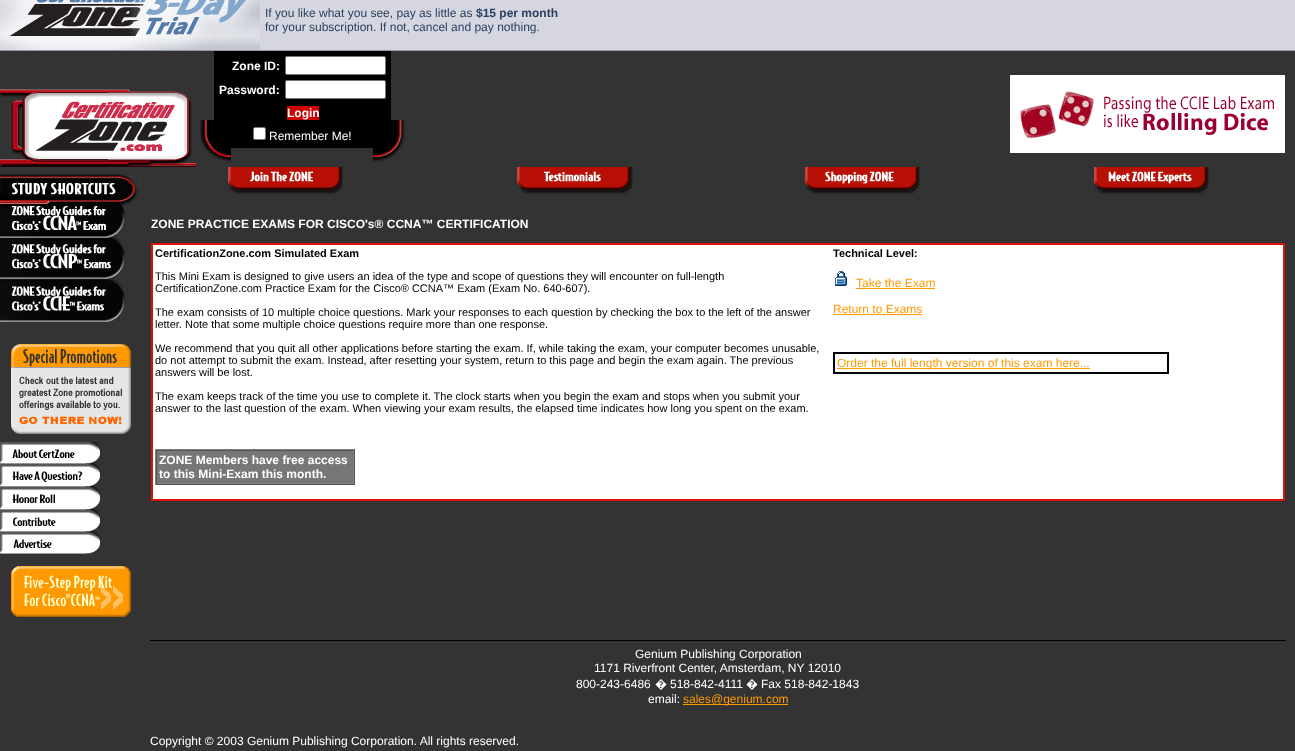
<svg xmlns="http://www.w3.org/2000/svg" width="1295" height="751">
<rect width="100%" height="100%" fill="#333"/>
<rect x="260" width="1035" height="50" fill="#d5d6df"/>
<image x="0" y="0" width="260" height="50" href="media/1.png"/>
<text x="265" y="17" style="font-family:Liberation Sans;font-size:12px;fill:#294060">If you like what you see, pay as little as</text>
<text x="476" y="17" style="font-family:Liberation Sans;font-size:12px;font-weight:bold;fill:#294060">$15 per month</text>
<text x="265" y="31" style="font-family:Liberation Sans;font-size:12px;fill:#294060">for your subscription. If not, cancel and pay nothing.</text>
<rect y="50" width="1295" height="1" fill="#9498a8"/>
<image x="0" y="89" width="196" height="78" href="media/2.png"/>
<image x="200" y="120" width="14" height="28" href="media/3.png"/>
<rect x="214" y="51" width="177" height="97" fill="#000"/>
<text x="232" y="70" style="font-family:Liberation Sans;font-size:12px;font-weight:bold;fill:#fff">Zone ID:</text>
<rect x="285.5" y="56.5" width="100" height="18" rx="1.5" fill="#fff" stroke="#767676"/>
<text x="219" y="94" style="font-family:Liberation Sans;font-size:12px;font-weight:bold;fill:#fff">Password:</text>
<rect x="285.5" y="80.5" width="100" height="18" rx="1.5" fill="#fff" stroke="#767676"/>
<rect x="287" y="106" width="32" height="14" fill="#c00"/>
<text x="287" y="117" style="font-family:Liberation Sans;font-size:12px;font-weight:bold;fill:#fff">Login</text>
<rect x="253.5" y="127.5" width="12" height="12" rx="1.5" fill="#fff" stroke="#767676"/>
<text x="269" y="140" style="font-family:Liberation Sans;font-size:12px;fill:#fff">Remember Me!</text>
<image x="391" y="120" width="14" height="28" href="media/4.png"/>
<image x="205" y="148" width="26" height="14" href="media/5.png"/>
<image x="373" y="148" width="28" height="14" href="media/6.png"/>
<image x="1010" y="75" width="275" height="78" href="media/7.png"/>
<image x="0" y="174" width="141" height="25" href="media/8.png"/>
<image x="0" y="199" width="134" height="37" href="media/9.png"/>
<image x="0" y="236" width="125" height="41" href="media/10.png"/>
<image x="0" y="277" width="125" height="45" href="media/11.png"/>
<image x="11" y="344" width="120" height="90" href="media/12.png"/>
<image x="0" y="442" width="101" height="22" href="media/13.png"/>
<image x="0" y="464" width="100" height="23" href="media/14.png"/>
<image x="0" y="487" width="101" height="23" href="media/15.png"/>
<image x="0" y="510" width="100" height="22" href="media/16.png"/>
<image x="0" y="532" width="100" height="22" href="media/17.png"/>
<image x="11" y="566" width="120" height="51" href="media/18.png"/>
<image x="228" y="167" width="115" height="27" href="media/19.png"/>
<image x="517" y="167" width="116" height="27" href="media/20.png"/>
<image x="805" y="167" width="115" height="27" href="media/21.png"/>
<image x="1094" y="167" width="115" height="27" href="media/22.png"/>
<text x="151" y="228" style="font-family:Liberation Sans;font-size:12px;font-weight:bold;fill:#fff">ZONE PRACTICE EXAMS FOR CISCO's® CCNA™ CERTIFICATION</text>
<rect x="151" y="243" width="1134" height="258" fill="#dd1010"/>
<rect x="153" y="245" width="1130" height="254" fill="#fff"/>
<text x="155" y="257" style="font-family:Liberation Sans;font-size:11px;font-weight:bold;fill:#000">CertificationZone.com Simulated Exam</text>
<text x="155" y="280" style="font-family:Liberation Sans;font-size:11px;fill:#000">This Mini Exam is designed to give users an idea of the type and scope of questions they will encounter on full-length</text>
<text x="155" y="292" style="font-family:Liberation Sans;font-size:11px;fill:#000">CertificationZone.com Practice Exam for the Cisco® CCNA™ Exam (Exam No. 640-607).</text>
<text x="155" y="316" style="font-family:Liberation Sans;font-size:11px;fill:#000">The exam consists of 10 multiple choice questions. Mark your responses to each question by checking the box to the left of the answer</text>
<text x="155" y="328" style="font-family:Liberation Sans;font-size:11px;fill:#000">letter. Note that some multiple choice questions require more than one response.</text>
<text x="155" y="352" style="font-family:Liberation Sans;font-size:11px;fill:#000">We recommend that you quit all other applications before starting the exam. If, while taking the exam, your computer becomes unusable,</text>
<text x="155" y="364" style="font-family:Liberation Sans;font-size:11px;fill:#000">do not attempt to submit the exam. Instead, after resetting your system, return to this page and begin the exam again. The previous</text>
<text x="155" y="376" style="font-family:Liberation Sans;font-size:11px;fill:#000">answers will be lost.</text>
<text x="155" y="400" style="font-family:Liberation Sans;font-size:11px;fill:#000">The exam keeps track of the time you use to complete it. The clock starts when you begin the exam and stops when you submit your</text>
<text x="155" y="412" style="font-family:Liberation Sans;font-size:11px;fill:#000">answer to the last question of the exam. When viewing your exam results, the elapsed time indicates how long you spent on the exam.</text>
<rect x="155" y="449" width="200" height="1" fill="#808080"/>
<rect x="354" y="449" width="1" height="36" fill="#555"/>
<rect x="155" y="484" width="200" height="1" fill="#555"/>
<rect x="155" y="449" width="1" height="36" fill="#808080"/>
<rect x="157" y="451" width="196" height="32" fill="#777"/>
<rect x="156" y="450" width="198" height="1" fill="#555"/>
<rect x="353" y="450" width="1" height="34" fill="#808080"/>
<rect x="156" y="483" width="198" height="1" fill="#808080"/>
<rect x="156" y="450" width="1" height="34" fill="#555"/>
<text x="159" y="464" style="font-family:Liberation Sans;font-size:12px;font-weight:bold;fill:#fff">ZONE Members have free access</text>
<text x="159" y="478" style="font-family:Liberation Sans;font-size:12px;font-weight:bold;fill:#fff">to this Mini-Exam this month.</text>
<text x="833" y="257" style="font-family:Liberation Sans;font-size:11px;font-weight:bold;fill:#000">Technical Level:</text>
<image x="835" y="271" width="12" height="15" href="media/23.png"/>
<text x="856" y="287" style="font-family:Liberation Sans;font-size:12px;fill:#f90">Take the Exam</text>
<rect x="856" y="288" width="79" height="1" fill="#f90"/>
<text x="833" y="313" style="font-family:Liberation Sans;font-size:12px;fill:#f90">Return to Exams</text>
<rect x="833" y="314" width="89" height="1" fill="#f90"/>
<rect x="833.5" y="352.5" width="335" height="21" fill="none" stroke="#000"/>
<rect x="834.5" y="353.5" width="333" height="19" fill="none" stroke="#000"/>
<rect x="837" y="368" width="253" height="1" fill="#f90"/>
<text x="837" y="367" style="font-family:Liberation Sans;font-size:12px;fill:#f90">Order the full length version of this exam here...</text>
<rect x="150" y="640" width="1136" height="1" fill="#000"/>
<text x="635" y="658" style="font-family:Liberation Sans;font-size:12px;fill:#fff">Genium Publishing Corporation</text>
<text x="594" y="672" style="font-family:Liberation Sans;font-size:12px;fill:#fff">1171 Riverfront Center, Amsterdam, NY 12010</text>
<text x="576" y="688" style="font-family:Liberation Sans;font-size:12px;fill:#fff">800-243-6486</text>
<text x="655" y="688" style="font-family:Noto Sans;font-size:12px;fill:#fff">�</text>
<text x="670" y="688" style="font-family:Liberation Sans;font-size:12px;fill:#fff">518-842-4111</text>
<text x="746" y="688" style="font-family:Noto Sans;font-size:12px;fill:#fff">�</text>
<text x="761" y="688" style="font-family:Liberation Sans;font-size:12px;fill:#fff">Fax 518-842-1843</text>
<text x="648" y="703" style="font-family:Liberation Sans;font-size:12px;fill:#fff">email:</text>
<rect x="683" y="704" width="105" height="1" fill="#f90"/>
<text x="683" y="703" style="font-family:Liberation Sans;font-size:12px;fill:#f90">sales@genium.com</text>
<text x="150" y="745" style="font-family:Liberation Sans;font-size:12px;fill:#fff">Copyright © 2003 Genium Publishing Corporation. All rights reserved.</text>
</svg>
